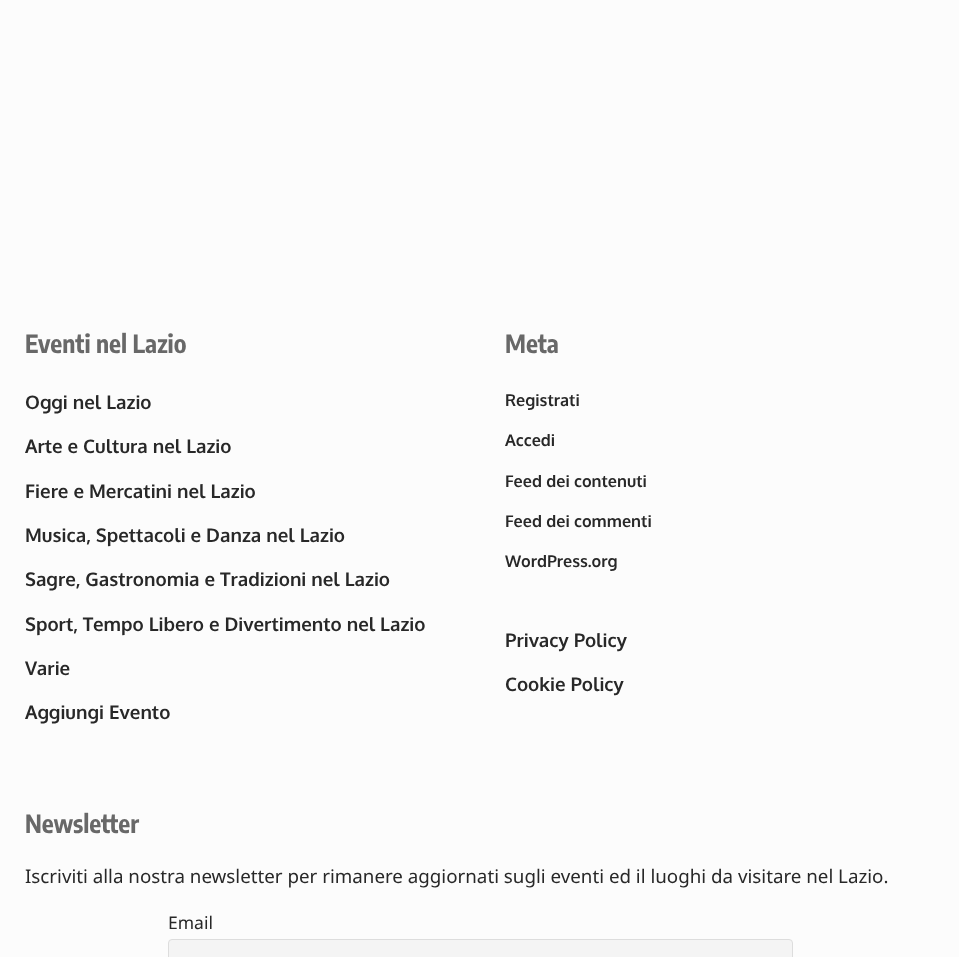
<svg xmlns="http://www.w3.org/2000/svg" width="959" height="957">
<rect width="100%" height="100%" fill="#fcfcfc"/>
<text x="25" y="353" style="font-family:Encode Sans Condensed;font-size:25px;font-weight:bold;fill:#686868">Eventi nel Lazio</text>
<text x="25" y="409" style="font-family:Oxygen;font-size:18.75px;font-weight:bold;fill:#282828">Oggi nel Lazio</text>
<text x="25" y="453" style="font-family:Oxygen;font-size:18.75px;font-weight:bold;fill:#282828">Arte e Cultura nel Lazio</text>
<text x="25" y="498" style="font-family:Oxygen;font-size:18.75px;font-weight:bold;fill:#282828">Fiere e Mercatini nel Lazio</text>
<text x="25" y="542" style="font-family:Oxygen;font-size:18.75px;font-weight:bold;fill:#282828">Musica, Spettacoli e Danza nel Lazio</text>
<text x="25" y="586" style="font-family:Oxygen;font-size:18.75px;font-weight:bold;fill:#282828">Sagre, Gastronomia e Tradizioni nel Lazio</text>
<text x="25" y="631" style="font-family:Oxygen;font-size:18.75px;font-weight:bold;fill:#282828">Sport, Tempo Libero e Divertimento nel Lazio</text>
<text x="25" y="675" style="font-family:Oxygen;font-size:18.75px;font-weight:bold;fill:#282828">Varie</text>
<text x="25" y="719" style="font-family:Oxygen;font-size:18.75px;font-weight:bold;fill:#282828">Aggiungi Evento</text>
<text x="505" y="353" style="font-family:Encode Sans Condensed;font-size:25px;font-weight:bold;fill:#686868">Meta</text>
<text x="505" y="406" style="font-family:Oxygen;font-size:16.25px;font-weight:bold;fill:#282828">Registrati</text>
<text x="505" y="446" style="font-family:Oxygen;font-size:16.25px;font-weight:bold;fill:#282828">Accedi</text>
<text x="505" y="487" style="font-family:Oxygen;font-size:16.25px;font-weight:bold;fill:#282828">Feed dei contenuti</text>
<text x="505" y="527" style="font-family:Oxygen;font-size:16.25px;font-weight:bold;fill:#282828">Feed dei commenti</text>
<text x="505" y="567" style="font-family:Oxygen;font-size:16.25px;font-weight:bold;fill:#282828">WordPress.org</text>
<text x="505" y="647" style="font-family:Oxygen;font-size:18.75px;font-weight:bold;fill:#282828">Privacy Policy</text>
<text x="505" y="691" style="font-family:Oxygen;font-size:18.75px;font-weight:bold;fill:#282828">Cookie Policy</text>
<text x="25" y="833" style="font-family:Encode Sans Condensed;font-size:25px;font-weight:bold;fill:#686868">Newsletter</text>
<text x="25" y="883" style="font-family:Noto Sans;font-size:18.75px;fill:#282828">Iscriviti alla nostra newsletter per rimanere aggiornati sugli eventi ed il luoghi da visitare nel Lazio.</text>
<text x="168" y="929" style="font-family:Noto Sans;font-size:17.5px;fill:#282828">Email</text>
<rect x="168.5" y="939.5" width="624" height="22" rx="3.5" fill="#f4f4f4" stroke="#ddd"/>
</svg>
